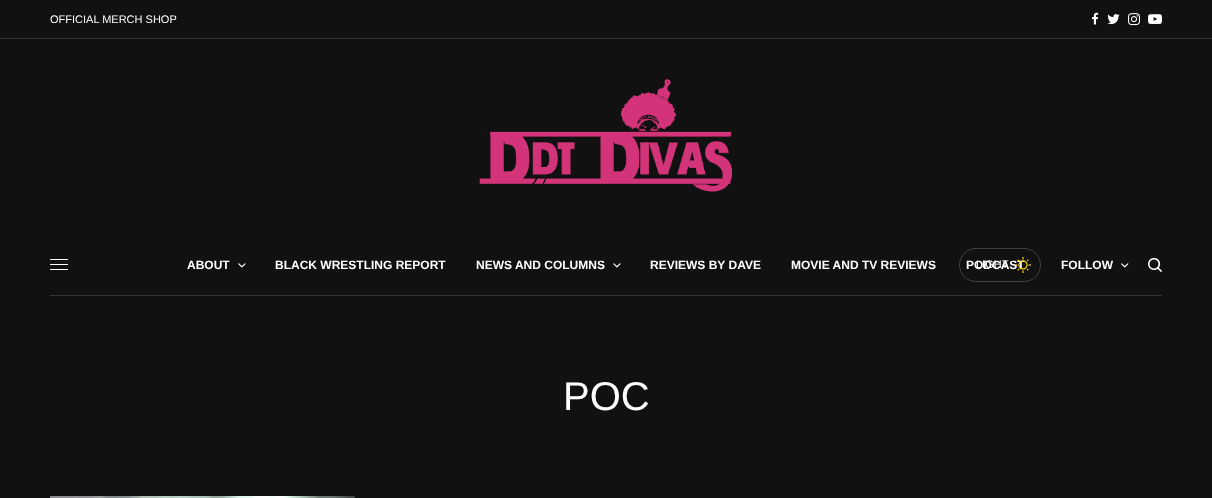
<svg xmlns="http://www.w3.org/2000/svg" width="1212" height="498">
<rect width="100%" height="100%" fill="#111"/>
<rect y="38" width="1212" height="1" fill="#353535"/>
<text x="50" y="23" style="font-family:Liberation Sans;font-size:11px;fill:#fff">OFFICIAL MERCH SHOP</text>
<image x="1092" y="12" width="7" height="13" href="media/1.png"/>
<image x="1107" y="14" width="13" height="11" href="media/2.png"/>
<image x="1128" y="13" width="12" height="13" href="media/3.png"/>
<image x="1148" y="14" width="14" height="10" href="media/4.png"/>
<image x="479" y="79" width="253" height="113" href="media/5.png"/>
<rect x="50" y="295" width="1112" height="1" fill="#353535"/>
<rect x="50" y="259" width="18" height="1" rx="0.5" fill="#fff"/>
<rect x="50" y="264" width="18" height="1" rx="0.5" fill="#fff"/>
<rect x="50" y="269" width="18" height="1" rx="0.5" fill="#fff"/>
<text x="187" y="269" style="font-family:Liberation Sans;font-size:12px;font-weight:bold;fill:#fff">ABOUT</text>
<image x="238" y="263" width="8" height="5" href="media/6.png"/>
<text x="275" y="269" style="font-family:Liberation Sans;font-size:12px;font-weight:bold;fill:#fff">BLACK WRESTLING REPORT</text>
<text x="476" y="269" style="font-family:Liberation Sans;font-size:12px;font-weight:bold;fill:#fff">NEWS AND COLUMNS</text>
<image x="613" y="263" width="8" height="5" href="media/6.png"/>
<text x="650" y="269" style="font-family:Liberation Sans;font-size:12px;font-weight:bold;fill:#fff">REVIEWS BY DAVE</text>
<text x="791" y="269" style="font-family:Liberation Sans;font-size:12px;font-weight:bold;fill:#fff">MOVIE AND TV REVIEWS</text>
<text x="966" y="269" style="font-family:Liberation Sans;font-size:12px;font-weight:bold;fill:#fff">PODCAST</text>
<rect x="959.5" y="248.5" width="81" height="33" rx="16.5" fill="none" stroke="#414141"/>
<text x="976" y="268" style="font-family:Liberation Sans;font-size:11px;fill:#fff">LIGHT</text>
<image x="1016" y="257" width="15" height="16" href="media/7.png"/>
<text x="1061" y="269" style="font-family:Liberation Sans;font-size:12px;font-weight:bold;fill:#fff">FOLLOW</text>
<image x="1121" y="263" width="8" height="5" href="media/8.png"/>
<image x="1148" y="258" width="14" height="14" href="media/9.png"/>
<text x="563" y="410" style="font-family:Liberation Sans;font-size:40px;fill:#fff">POC</text>
<image x="50" y="496" width="305" height="2" href="media/10.png"/>
</svg>
